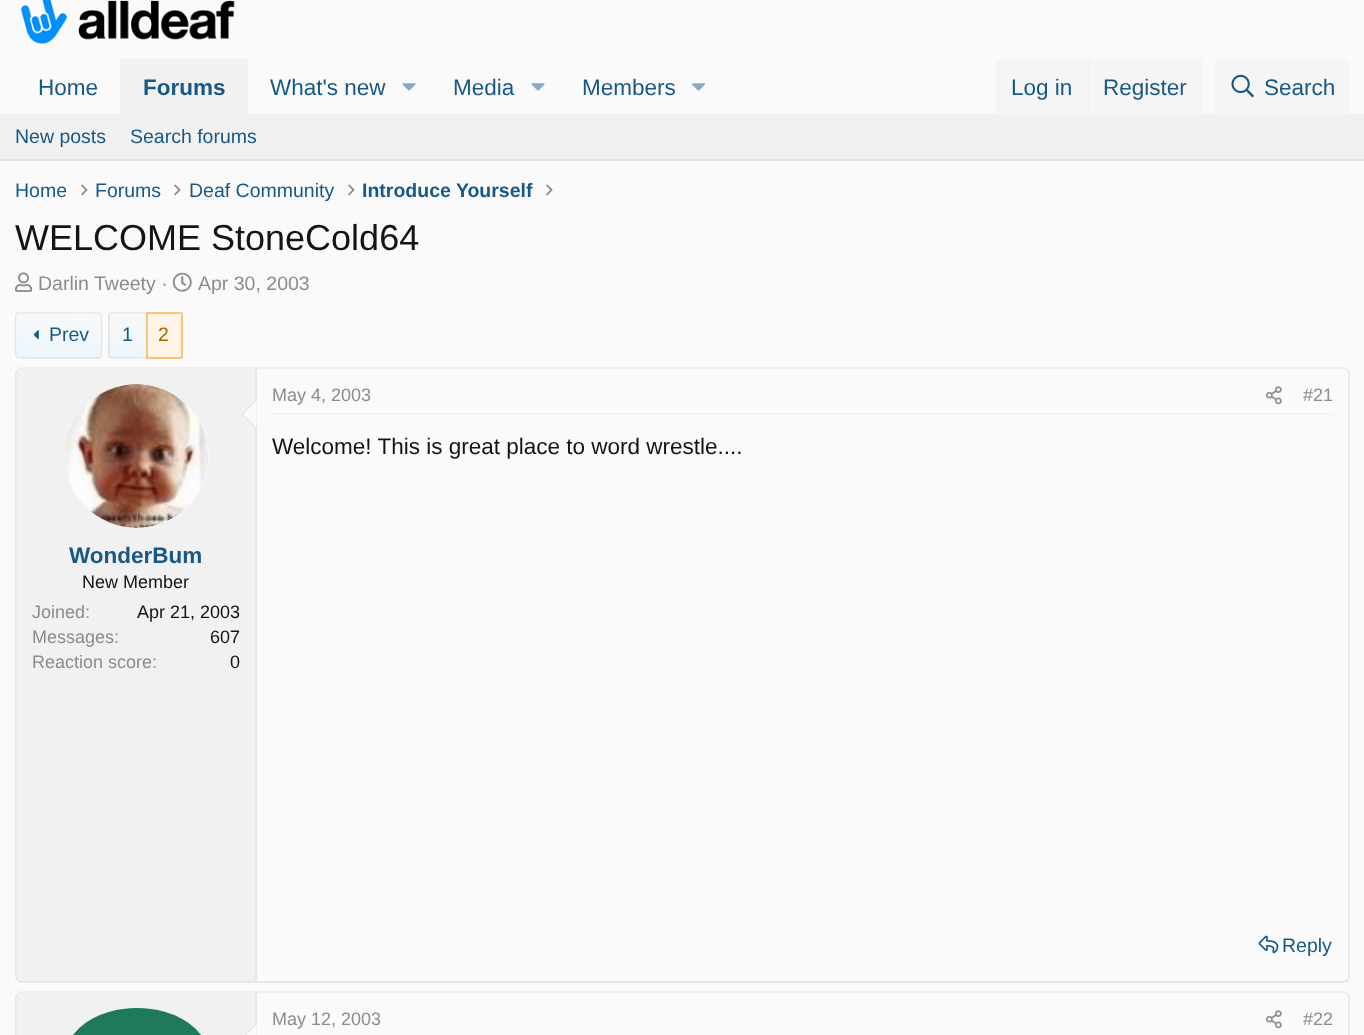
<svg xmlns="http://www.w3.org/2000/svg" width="1364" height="1035">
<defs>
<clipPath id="clip1"><rect x="15" y="312" width="87" height="47" rx="3"/></clipPath>
<linearGradient id="g1" gradientUnits="userSpaceOnUse" x1="59" y1="314" x2="59" y2="270"><stop offset="0" stop-color="#edf6fd"/><stop offset="1" stop-color="#f7f9fb"/></linearGradient>
<linearGradient id="g2" gradientUnits="userSpaceOnUse" x1="59" y1="357" x2="59" y2="314"><stop offset="0" stop-color="#edf6fd"/><stop offset="1" stop-color="#f7f9fb"/></linearGradient>
<linearGradient id="g3" gradientUnits="userSpaceOnUse" x1="59" y1="401" x2="59" y2="357"><stop offset="0" stop-color="#edf6fd"/><stop offset="1" stop-color="#f7f9fb"/></linearGradient>
<clipPath id="clip2"><path d="M111 312h35v47h-35c-1.5 0-3-1.5-3-3v-41c0-1.5 1.5-3 3-3z"/></clipPath>
<linearGradient id="g4" gradientUnits="userSpaceOnUse" x1="128" y1="314" x2="128" y2="270"><stop offset="0" stop-color="#edf6fd"/><stop offset="1" stop-color="#f7f9fb"/></linearGradient>
<linearGradient id="g5" gradientUnits="userSpaceOnUse" x1="128" y1="357" x2="128" y2="314"><stop offset="0" stop-color="#edf6fd"/><stop offset="1" stop-color="#f7f9fb"/></linearGradient>
<linearGradient id="g6" gradientUnits="userSpaceOnUse" x1="128" y1="401" x2="128" y2="357"><stop offset="0" stop-color="#edf6fd"/><stop offset="1" stop-color="#f7f9fb"/></linearGradient>
</defs>
<rect width="100%" height="100%" fill="#fafafa"/>
<image x="20" y="0" width="215" height="44" href="media/1.png"/>
<text x="38" y="95" style="font-family:Liberation Sans;font-size:22.5px;fill:#185886">Home</text>
<path d="M123 59h122c1.5 0 3 1.5 3 3v52h-128v-52c0-1.5 1.5-3 3-3z" fill="#f1f1f1"/>
<text x="143" y="95" style="font-family:Liberation Sans;font-size:22.5px;font-weight:bold;fill:#185886">Forums</text>
<text x="270" y="95" style="font-family:Liberation Sans;font-size:22.5px;fill:#185886">What's new</text>
<image x="402" y="83" width="14" height="8" href="media/2.png"/>
<text x="453" y="95" style="font-family:Liberation Sans;font-size:22.5px;fill:#185886">Media</text>
<image x="531" y="83" width="14" height="8" href="media/2.png"/>
<text x="582" y="95" style="font-family:Liberation Sans;font-size:22.5px;fill:#185886">Members</text>
<image x="692" y="83" width="13" height="8" href="media/3.png"/>
<path d="M1002 59h195c3.5 0 6 2.5 6 6v49h-207v-49c0-3.5 2.5-6 6-6z" fill="#f5f5f5"/>
<text x="1011" y="95" style="font-family:Liberation Sans;font-size:22.5px;fill:#185886">Log in</text>
<rect x="1088" y="59" width="2" height="55" fill="#f1f1f1"/>
<text x="1103" y="95" style="font-family:Liberation Sans;font-size:22.5px;fill:#185886">Register</text>
<path d="M1220 59h124c3.5 0 6 2.5 6 6v49h-136v-49c0-3.5 2.5-6 6-6z" fill="#f5f5f5"/>
<image x="1231" y="74" width="23" height="24" href="media/4.png"/>
<text x="1264" y="95" style="font-family:Liberation Sans;font-size:22.5px;fill:#185886">Search</text>
<rect y="114" width="1364" height="45" fill="#f1f1f1"/>
<rect y="159" width="1364" height="2" fill="#e2e2e2"/>
<text x="15" y="143" style="font-family:Liberation Sans;font-size:19.5px;fill:#185886">New posts</text>
<text x="130" y="143" style="font-family:Liberation Sans;font-size:19.5px;fill:#185886">Search forums</text>
<text x="15" y="197" style="font-family:Liberation Sans;font-size:19.5px;fill:#185886">Home</text>
<image x="81" y="184" width="7" height="12" href="media/5.png"/>
<text x="95" y="197" style="font-family:Liberation Sans;font-size:19.5px;fill:#185886">Forums</text>
<image x="174" y="184" width="7" height="12" href="media/5.png"/>
<text x="189" y="197" style="font-family:Liberation Sans;font-size:19.5px;fill:#185886">Deaf Community</text>
<image x="348" y="184" width="7" height="12" href="media/5.png"/>
<text x="362" y="197" style="font-family:Liberation Sans;font-size:19.5px;font-weight:bold;fill:#185886">Introduce Yourself</text>
<image x="546" y="184" width="7" height="12" href="media/5.png"/>
<text x="15" y="250" style="font-family:Liberation Sans;font-size:36px;fill:#141414">WELCOME StoneCold64</text>
<image x="15" y="272" width="18" height="20" href="media/6.png"/>
<text x="38" y="290" style="font-family:Liberation Sans;font-size:19.5px;fill:#8c8c8c">Darlin Tweety ·</text>
<image x="172" y="272" width="20" height="20" href="media/7.png"/>
<text x="198" y="290" style="font-family:Liberation Sans;font-size:19.5px;fill:#8c8c8c">Apr 30, 2003</text>
<g clip-path="url(#clip1)">
<rect x="15" y="312" width="87" height="2" fill="url(#g1)"/>
<rect x="15" y="314" width="87" height="43" fill="url(#g2)"/>
<rect x="15" y="357" width="87" height="2" fill="url(#g3)"/>
</g>
<path d="M16.5 313.5l1.5-.5h13.5c7 0 67-1 68.5 0l.5 .5" fill="none" stroke="#ececec" stroke-width="1.5"/>
<path d="M100.5 313.5c1.5 1 1.5 42.5 0 43.5" fill="none" stroke="#e5e5e5" stroke-width="1.5"/>
<path d="M100.5 357l-1.5 1h-13.5c-7 0-67 .5-68.5-.5l-.5-.5" fill="none" stroke="#e2e2e2" stroke-width="1.5"/>
<path d="M16.5 357c-1.5-1-1.5-42.5 0-43.5" fill="none" stroke="#e5e5e5" stroke-width="1.5"/>
<image x="33" y="330" width="6" height="10" href="media/8.png"/>
<text x="49" y="341" style="font-family:Liberation Sans;font-size:19.5px;fill:#185886">Prev</text>
<g clip-path="url(#clip2)">
<rect x="108" y="312" width="38" height="2" fill="url(#g4)"/>
</g>
<rect x="108" y="314" width="38" height="43" fill="url(#g5)"/>
<g clip-path="url(#clip2)">
<rect x="108" y="357" width="38" height="2" fill="url(#g6)"/>
</g>
<path d="M111 312l-2 1l1 1h35.5v-2z" fill="#ececec"/>
<path d="M145.5 358l-29.5 .5l-7-.5v-.5l1-1l1 .5h34.5z" fill="#e2e2e2"/>
<path d="M108 314v42l1 2l1-2v-42l-1-1z" fill="#e5e5e5"/>
<text x="122" y="341" style="font-family:Liberation Sans;font-size:19.5px;fill:#185886">1</text>
<path d="M147 313h33c1 0 2 1 2 2v41c0 1-1 2-2 2h-33z" fill="#fff4e5" stroke="#f9c479" stroke-width="2"/>
<text x="158" y="341" style="font-family:Liberation Sans;font-size:19.5px;fill:#aa6709">2</text>
<path d="M17.5 370c1-1 2-2 3.5-2h1323c1.5 0 2.5 1 3.5 2" fill="none" stroke="#ececec" stroke-width="1.5"/>
<path d="M1347.5 370c1 1 1.5 2 1.5 3.5v603c0 1.5-.5 2.5-1.5 3.5" fill="none" stroke="#e5e5e5" stroke-width="1.5"/>
<path d="M1347.5 980c-1 1-2 2-3.5 2h-1323c-1.5 0-2.5-1-3.5-2" fill="none" stroke="#e2e2e2" stroke-width="1.5"/>
<path d="M17.5 980c-1-1-1.5-2-1.5-3.5v-603c0-1.5 .5-2.5 1.5-3.5" fill="none" stroke="#e5e5e5" stroke-width="1.5"/>
<path d="M22 369h235v612h-235c-3 0-5-2-5-5v-602c0-3 2-5 5-5z" fill="#f1f1f1"/>
<rect x="255" y="369" width="2" height="612" fill="#e5e5e5"/>
<circle cx="137" cy="456" r="72" fill="#fafafa"/>
<image x="65" y="384" width="143" height="144" href="media/9.png"/>
<path d="M256.5 399v30l-15-15z" fill="#e5e5e5"/>
<path d="M256.5 400.5v27l-13.5-13.5z" fill="#fafafa"/>
<text x="69" y="563" style="font-family:Liberation Sans;font-size:22.5px;font-weight:bold;fill:#185886">WonderBum</text>
<text x="82" y="588" style="font-family:Liberation Sans;font-size:18px;fill:#141414">New Member</text>
<text x="32" y="618" style="font-family:Liberation Sans;font-size:18px;fill:#8c8c8c">Joined:</text>
<text x="137" y="618" style="font-family:Liberation Sans;font-size:18px;fill:#141414">Apr 21, 2003</text>
<text x="32" y="643" style="font-family:Liberation Sans;font-size:18px;fill:#8c8c8c">Messages:</text>
<text x="210" y="643" style="font-family:Liberation Sans;font-size:18px;fill:#141414">607</text>
<text x="32" y="668" style="font-family:Liberation Sans;font-size:18px;fill:#8c8c8c">Reaction score:</text>
<text x="230" y="668" style="font-family:Liberation Sans;font-size:18px;fill:#141414">0</text>
<rect x="272" y="413" width="1062" height="2" fill="#f4f4f4"/>
<text x="272" y="401" style="font-family:Liberation Sans;font-size:18px;fill:#8c8c8c">May 4, 2003</text>
<image x="1266" y="386" width="16" height="19" href="media/10.png"/>
<text x="1303" y="401" style="font-family:Liberation Sans;font-size:18px;fill:#8c8c8c">#21</text>
<text x="272" y="454" style="font-family:Liberation Sans;font-size:22.5px;fill:#141414">Welcome! This is great place to word wrestle....</text>
<image x="1258" y="935" width="21" height="19" href="media/11.png"/>
<text x="1282" y="952" style="font-family:Liberation Sans;font-size:19.5px;fill:#185886">Reply</text>
<path d="M17.5 994c1-1 2-2 3.5-2h1323c1.5 0 2.5 1 3.5 2" fill="none" stroke="#ececec" stroke-width="1.5"/>
<path d="M1347.5 994c1 1 1.5 2 1.5 3.5v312c0 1.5-.5 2.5-1.5 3.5" fill="none" stroke="#e5e5e5" stroke-width="1.5"/>
<path d="M17.5 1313c-1-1-1.5-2-1.5-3.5v-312c0-1.5 .5-2.5 1.5-3.5" fill="none" stroke="#e5e5e5" stroke-width="1.5"/>
<path d="M22 993h235v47h-235c-3 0-5-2-5-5v-37c0-3 2-5 5-5z" fill="#f1f1f1"/>
<rect x="255" y="993" width="2" height="42" fill="#e5e5e5"/>
<rect x="65" y="1008" width="144" height="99" rx="72" fill="#1f7a5c"/>
<path d="M256.5 1023v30l-15-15z" fill="#e5e5e5"/>
<path d="M256.5 1024.5v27l-13.5-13.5z" fill="#fafafa"/>
<text x="272" y="1025" style="font-family:Liberation Sans;font-size:18px;fill:#8c8c8c">May 12, 2003</text>
<image x="1266" y="1010" width="16" height="19" href="media/10.png"/>
<text x="1303" y="1025" style="font-family:Liberation Sans;font-size:18px;fill:#8c8c8c">#22</text>
</svg>
